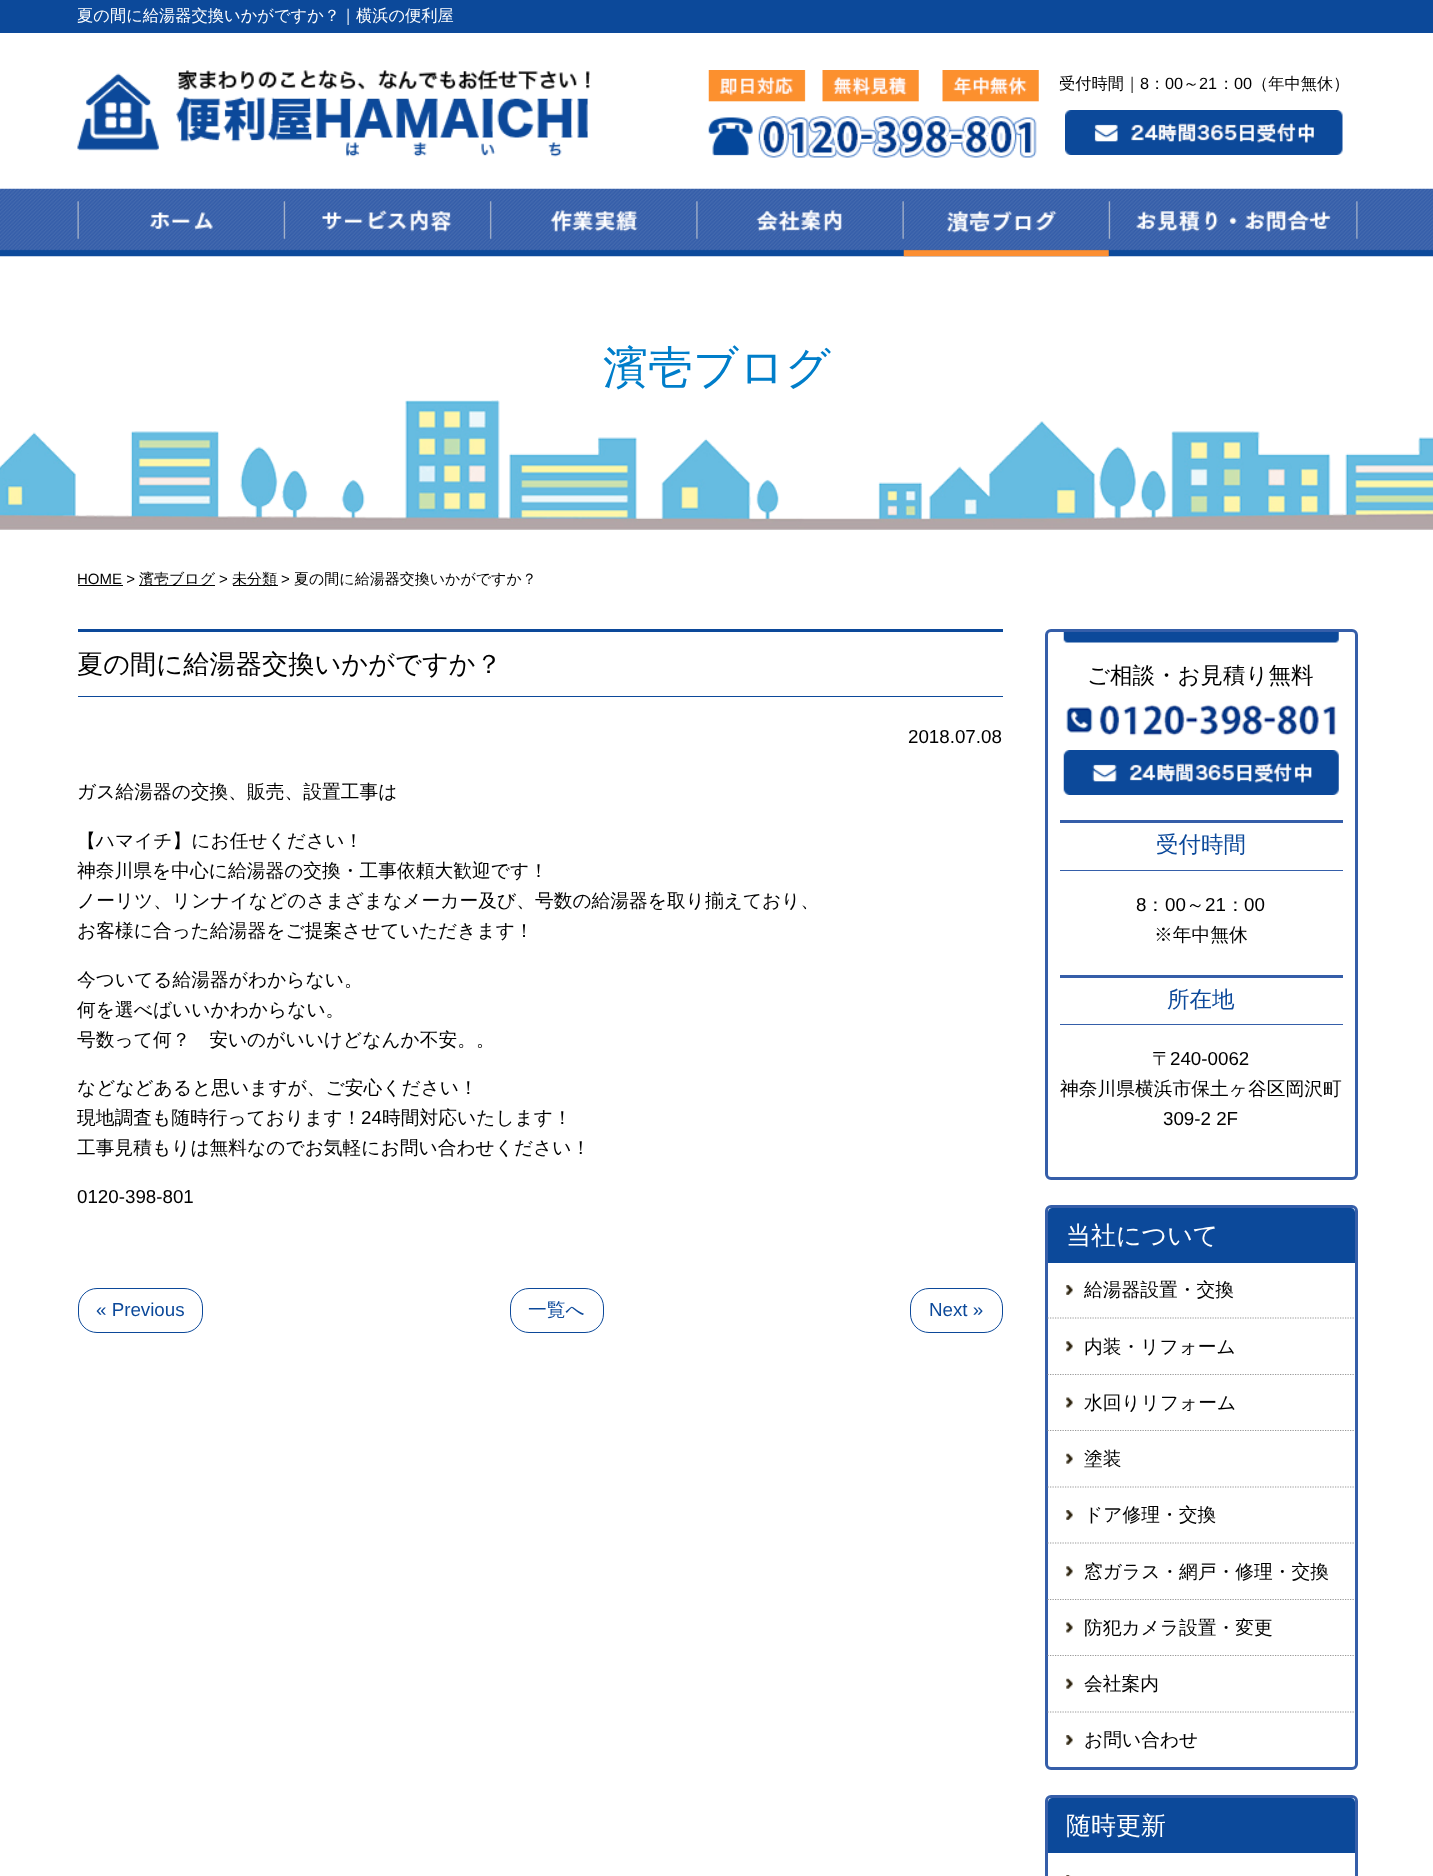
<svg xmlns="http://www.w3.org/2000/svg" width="1433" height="1876">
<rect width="100%" height="100%" fill="#fff"/>
<rect width="1433" height="33" fill="#0c499a"/>
<text x="77" y="21" style="font-family:WenQuanYi Zen Hei;font-size:16.25px;font-weight:500;fill:#fff">夏の間に給湯器交換いかがですか？｜横浜の便利屋</text>
<image x="77" y="70" width="513" height="87" href="media/1.png"/>
<image x="708" y="70" width="331" height="88" href="media/2.png"/>
<text x="1059" y="89" style="font-family:WenQuanYi Zen Hei;font-size:16.25px;font-weight:500;fill:#000">受付時間｜</text>
<text x="1140" y="89" style="font-family:Liberation Sans;font-size:16.25px;fill:#000">8</text>
<text x="1149" y="89" style="font-family:WenQuanYi Zen Hei;font-size:16.25px;font-weight:500;fill:#000">：</text>
<text x="1165" y="89" style="font-family:Liberation Sans;font-size:16.25px;fill:#000">00</text>
<text x="1183" y="89" style="font-family:WenQuanYi Zen Hei;font-size:16.25px;font-weight:500;fill:#000">～</text>
<text x="1199" y="89" style="font-family:Liberation Sans;font-size:16.25px;fill:#000">21</text>
<text x="1218" y="89" style="font-family:WenQuanYi Zen Hei;font-size:16.25px;font-weight:500;fill:#000">：</text>
<text x="1234" y="89" style="font-family:Liberation Sans;font-size:16.25px;fill:#000">00</text>
<text x="1252" y="89" style="font-family:WenQuanYi Zen Hei;font-size:16.25px;font-weight:500;fill:#000">（年中無休）</text>
<image x="1065" y="110" width="278" height="45" href="media/3.png"/>
<image x="0" y="188" width="1433" height="69" href="media/4.png"/>
<image x="77" y="201" width="1281" height="38" href="media/5.png"/>
<image x="149" y="212" width="64" height="18" href="media/6.png"/>
<image x="322" y="209" width="130" height="23" href="media/7.png"/>
<image x="550" y="209" width="88" height="23" href="media/8.png"/>
<image x="756" y="209" width="86" height="23" href="media/9.png"/>
<image x="903" y="210" width="206" height="47" href="media/10.png"/>
<image x="1136" y="210" width="195" height="22" href="media/11.png"/>
<image x="0" y="400" width="1433" height="130" href="media/12.png"/>
<text x="603" y="383" style="font-family:WenQuanYi Zen Hei;font-size:45px;font-weight:500;fill:#007eca">濱壱ブログ</text>
<text x="77" y="584" style="font-family:Liberation Sans;font-size:15px;fill:#000">HOME &gt;</text>
<rect x="78" y="585" width="45" height="1" fill="#000"/>
<rect x="139" y="585" width="76" height="1" fill="#000"/>
<text x="139" y="584" style="font-family:WenQuanYi Zen Hei;font-size:15px;font-weight:500;fill:#000">濱壱ブログ</text>
<text x="219" y="584" style="font-family:Liberation Sans;font-size:15px;fill:#000">&gt;</text>
<rect x="233" y="585" width="45" height="1" fill="#000"/>
<text x="232" y="584" style="font-family:WenQuanYi Zen Hei;font-size:15px;font-weight:500;fill:#000">未分類</text>
<text x="281" y="584" style="font-family:Liberation Sans;font-size:15px;fill:#000">&gt;</text>
<text x="294" y="584" style="font-family:WenQuanYi Zen Hei;font-size:15px;font-weight:500;fill:#000">夏の間に給湯器交換いかがですか？</text>
<rect x="78" y="629" width="925" height="3" fill="#0c499a"/>
<rect x="78" y="696" width="925" height="1" fill="#0c499a"/>
<text x="77" y="673" style="font-family:WenQuanYi Zen Hei;font-size:26.25px;font-weight:500;fill:#000">夏の間に給湯器交換いかがですか？</text>
<text x="908" y="743" style="font-family:Liberation Sans;font-size:18.75px;fill:#000">2018.07.08</text>
<text x="77" y="798" style="font-family:WenQuanYi Zen Hei;font-size:18.75px;font-weight:500;fill:#000">ガス給湯器の交換、販売、設置工事は</text>
<text x="77" y="847" style="font-family:WenQuanYi Zen Hei;font-size:18.75px;font-weight:500;fill:#000">【ハマイチ】にお任せください！</text>
<text x="77" y="877" style="font-family:WenQuanYi Zen Hei;font-size:18.75px;font-weight:500;fill:#000">神奈川県を中心に給湯器の交換・工事依頼大歓迎です！</text>
<text x="77" y="907" style="font-family:WenQuanYi Zen Hei;font-size:18.75px;font-weight:500;fill:#000">ノーリツ、リンナイなどのさまざまなメーカー及び、号数の給湯器を取り揃えており、</text>
<text x="77" y="937" style="font-family:WenQuanYi Zen Hei;font-size:18.75px;font-weight:500;fill:#000">お客様に合った給湯器をご提案させていただきます！</text>
<text x="77" y="986" style="font-family:WenQuanYi Zen Hei;font-size:18.75px;font-weight:500;fill:#000">今ついてる給湯器がわからない。</text>
<text x="77" y="1016" style="font-family:WenQuanYi Zen Hei;font-size:18.75px;font-weight:500;fill:#000">何を選べばいいかわからない。</text>
<text x="77" y="1046" style="font-family:WenQuanYi Zen Hei;font-size:18.75px;font-weight:500;fill:#000">号数って何？　安いのがいいけどなんか不安。。</text>
<text x="77" y="1094" style="font-family:WenQuanYi Zen Hei;font-size:18.75px;font-weight:500;fill:#000">などなどあると思いますが、ご安心ください！</text>
<text x="77" y="1124" style="font-family:WenQuanYi Zen Hei;font-size:18.75px;font-weight:500;fill:#000">現地調査も随時行っております！</text>
<text x="361" y="1124" style="font-family:Liberation Sans;font-size:18.75px;fill:#000">24</text>
<text x="382" y="1124" style="font-family:WenQuanYi Zen Hei;font-size:18.75px;font-weight:500;fill:#000">時間対応いたします！</text>
<text x="77" y="1154" style="font-family:WenQuanYi Zen Hei;font-size:18.75px;font-weight:500;fill:#000">工事見積もりは無料なのでお気軽にお問い合わせください！</text>
<text x="77" y="1203" style="font-family:Liberation Sans;font-size:18.75px;fill:#000">0120-398-801</text>
<rect x="78.5" y="1288.5" width="124" height="44" rx="18.5" fill="none" stroke="#0c499a"/>
<text x="96" y="1316" style="font-family:Liberation Sans;font-size:18.75px;fill:#0c499a">« Previous</text>
<rect x="510.5" y="1288.5" width="93" height="44" rx="18.5" fill="none" stroke="#0c499a"/>
<text x="528" y="1316" style="font-family:WenQuanYi Zen Hei;font-size:18.75px;font-weight:500;fill:#0c499a">一覧へ</text>
<rect x="910.5" y="1288.5" width="92" height="44" rx="18.5" fill="none" stroke="#0c499a"/>
<text x="929" y="1316" style="font-family:Liberation Sans;font-size:18.75px;fill:#0c499a">Next »</text>
<image x="1063" y="632" width="276" height="11" href="media/13.png"/>
<rect x="1046.5" y="630.5" width="310" height="548" rx="4.5" fill="none" stroke="#355ea9" stroke-width="3"/>
<text x="1087" y="683" style="font-family:WenQuanYi Zen Hei;font-size:22.5px;font-weight:500;fill:#000">ご相談・お見積り無料</text>
<image x="1066" y="704" width="270" height="32" href="media/14.png"/>
<image x="1063" y="750" width="276" height="45" href="media/15.png"/>
<rect x="1060" y="820" width="283" height="3" fill="#355ea9"/>
<rect x="1060" y="870" width="283" height="1" fill="#355ea9"/>
<text x="1156" y="852" style="font-family:WenQuanYi Zen Hei;font-size:22.5px;font-weight:500;fill:#0c499a">受付時間</text>
<text x="1136" y="911" style="font-family:Liberation Sans;font-size:18.75px;fill:#000">8</text>
<text x="1146" y="911" style="font-family:WenQuanYi Zen Hei;font-size:18.75px;font-weight:500;fill:#000">：</text>
<text x="1165" y="911" style="font-family:Liberation Sans;font-size:18.75px;fill:#000">00</text>
<text x="1186" y="911" style="font-family:WenQuanYi Zen Hei;font-size:18.75px;font-weight:500;fill:#000">～</text>
<text x="1205" y="911" style="font-family:Liberation Sans;font-size:18.75px;fill:#000">21</text>
<text x="1226" y="911" style="font-family:WenQuanYi Zen Hei;font-size:18.75px;font-weight:500;fill:#000">：</text>
<text x="1244" y="911" style="font-family:Liberation Sans;font-size:18.75px;fill:#000">00</text>
<text x="1154" y="941" style="font-family:WenQuanYi Zen Hei;font-size:18.75px;font-weight:500;fill:#000">※年中無休</text>
<rect x="1060" y="975" width="283" height="3" fill="#355ea9"/>
<rect x="1060" y="1024" width="283" height="1" fill="#355ea9"/>
<text x="1167" y="1007" style="font-family:WenQuanYi Zen Hei;font-size:22.5px;font-weight:500;fill:#0c499a">所在地</text>
<text x="1152" y="1065" style="font-family:WenQuanYi Zen Hei;font-size:18.75px;font-weight:500;fill:#000">〒</text>
<text x="1170" y="1065" style="font-family:Liberation Sans;font-size:18.75px;fill:#000">240-0062</text>
<text x="1060" y="1095" style="font-family:WenQuanYi Zen Hei;font-size:18.75px;font-weight:500;fill:#000">神奈川県横浜市保土ヶ谷区岡沢町</text>
<text x="1163" y="1125" style="font-family:Liberation Sans;font-size:18.75px;fill:#000">309-2 2F</text>
<rect x="1046.5" y="1206.5" width="310" height="562" rx="4.5" fill="none" stroke="#355ea9" stroke-width="3"/>
<path d="M1052 1208h299c2 0 4 2 4 4v51h-307v-51c0-2 2-4 4-4z" fill="#0c499a"/>
<text x="1066" y="1244" style="font-family:WenQuanYi Zen Hei;font-size:25px;font-weight:500;fill:#fff">当社について</text>
<image x="1066" y="1285" width="7" height="10" href="media/16.png"/>
<path d="M1047.5 1318h307.5" fill="none" stroke="#999" stroke-width="1.2" stroke-dasharray="1.25 1.25"/>
<text x="1084" y="1296" style="font-family:WenQuanYi Zen Hei;font-size:18.75px;font-weight:500;fill:#000">給湯器設置・交換</text>
<image x="1066" y="1341" width="7" height="11" href="media/17.png"/>
<path d="M1047.5 1374.5h307.5" fill="none" stroke="#999" stroke-width="1.2" stroke-dasharray="1.25 1.25"/>
<text x="1084" y="1353" style="font-family:WenQuanYi Zen Hei;font-size:18.75px;font-weight:500;fill:#000">内装・リフォーム</text>
<image x="1066" y="1397" width="7" height="11" href="media/18.png"/>
<path d="M1047.5 1430.5h307.5" fill="none" stroke="#999" stroke-width="1.2" stroke-dasharray="1.25 1.25"/>
<text x="1084" y="1409" style="font-family:WenQuanYi Zen Hei;font-size:18.75px;font-weight:500;fill:#000">水回りリフォーム</text>
<image x="1066" y="1453" width="7" height="11" href="media/19.png"/>
<path d="M1047.5 1487h307.5" fill="none" stroke="#999" stroke-width="1.2" stroke-dasharray="1.25 1.25"/>
<text x="1084" y="1465" style="font-family:WenQuanYi Zen Hei;font-size:18.75px;font-weight:500;fill:#000">塗装</text>
<image x="1066" y="1510" width="7" height="10" href="media/16.png"/>
<path d="M1047.5 1543h307.5" fill="none" stroke="#999" stroke-width="1.2" stroke-dasharray="1.25 1.25"/>
<text x="1084" y="1521" style="font-family:WenQuanYi Zen Hei;font-size:18.75px;font-weight:500;fill:#000">ドア修理・交換</text>
<image x="1066" y="1566" width="7" height="11" href="media/17.png"/>
<path d="M1047.5 1599.5h307.5" fill="none" stroke="#999" stroke-width="1.2" stroke-dasharray="1.25 1.25"/>
<text x="1084" y="1578" style="font-family:WenQuanYi Zen Hei;font-size:18.75px;font-weight:500;fill:#000">窓ガラス・網戸・修理・交換</text>
<image x="1066" y="1622" width="7" height="11" href="media/18.png"/>
<path d="M1047.5 1655.5h307.5" fill="none" stroke="#999" stroke-width="1.2" stroke-dasharray="1.25 1.25"/>
<text x="1084" y="1634" style="font-family:WenQuanYi Zen Hei;font-size:18.75px;font-weight:500;fill:#000">防犯カメラ設置・変更</text>
<image x="1066" y="1678" width="7" height="11" href="media/19.png"/>
<path d="M1047.5 1712h307.5" fill="none" stroke="#999" stroke-width="1.2" stroke-dasharray="1.25 1.25"/>
<text x="1084" y="1690" style="font-family:WenQuanYi Zen Hei;font-size:18.75px;font-weight:500;fill:#000">会社案内</text>
<image x="1066" y="1735" width="7" height="10" href="media/16.png"/>
<text x="1084" y="1746" style="font-family:WenQuanYi Zen Hei;font-size:18.75px;font-weight:500;fill:#000">お問い合わせ</text>
<rect x="1046.5" y="1796.5" width="310" height="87" rx="4.5" fill="none" stroke="#355ea9" stroke-width="3"/>
<path d="M1052 1798h299c2 0 4 2 4 4v51h-307v-51c0-2 2-4 4-4z" fill="#0c499a"/>
<text x="1066" y="1834" style="font-family:WenQuanYi Zen Hei;font-size:25px;font-weight:500;fill:#fff">随時更新</text>
<image x="1066" y="1875" width="5" height="1" href="media/20.png"/>
</svg>
